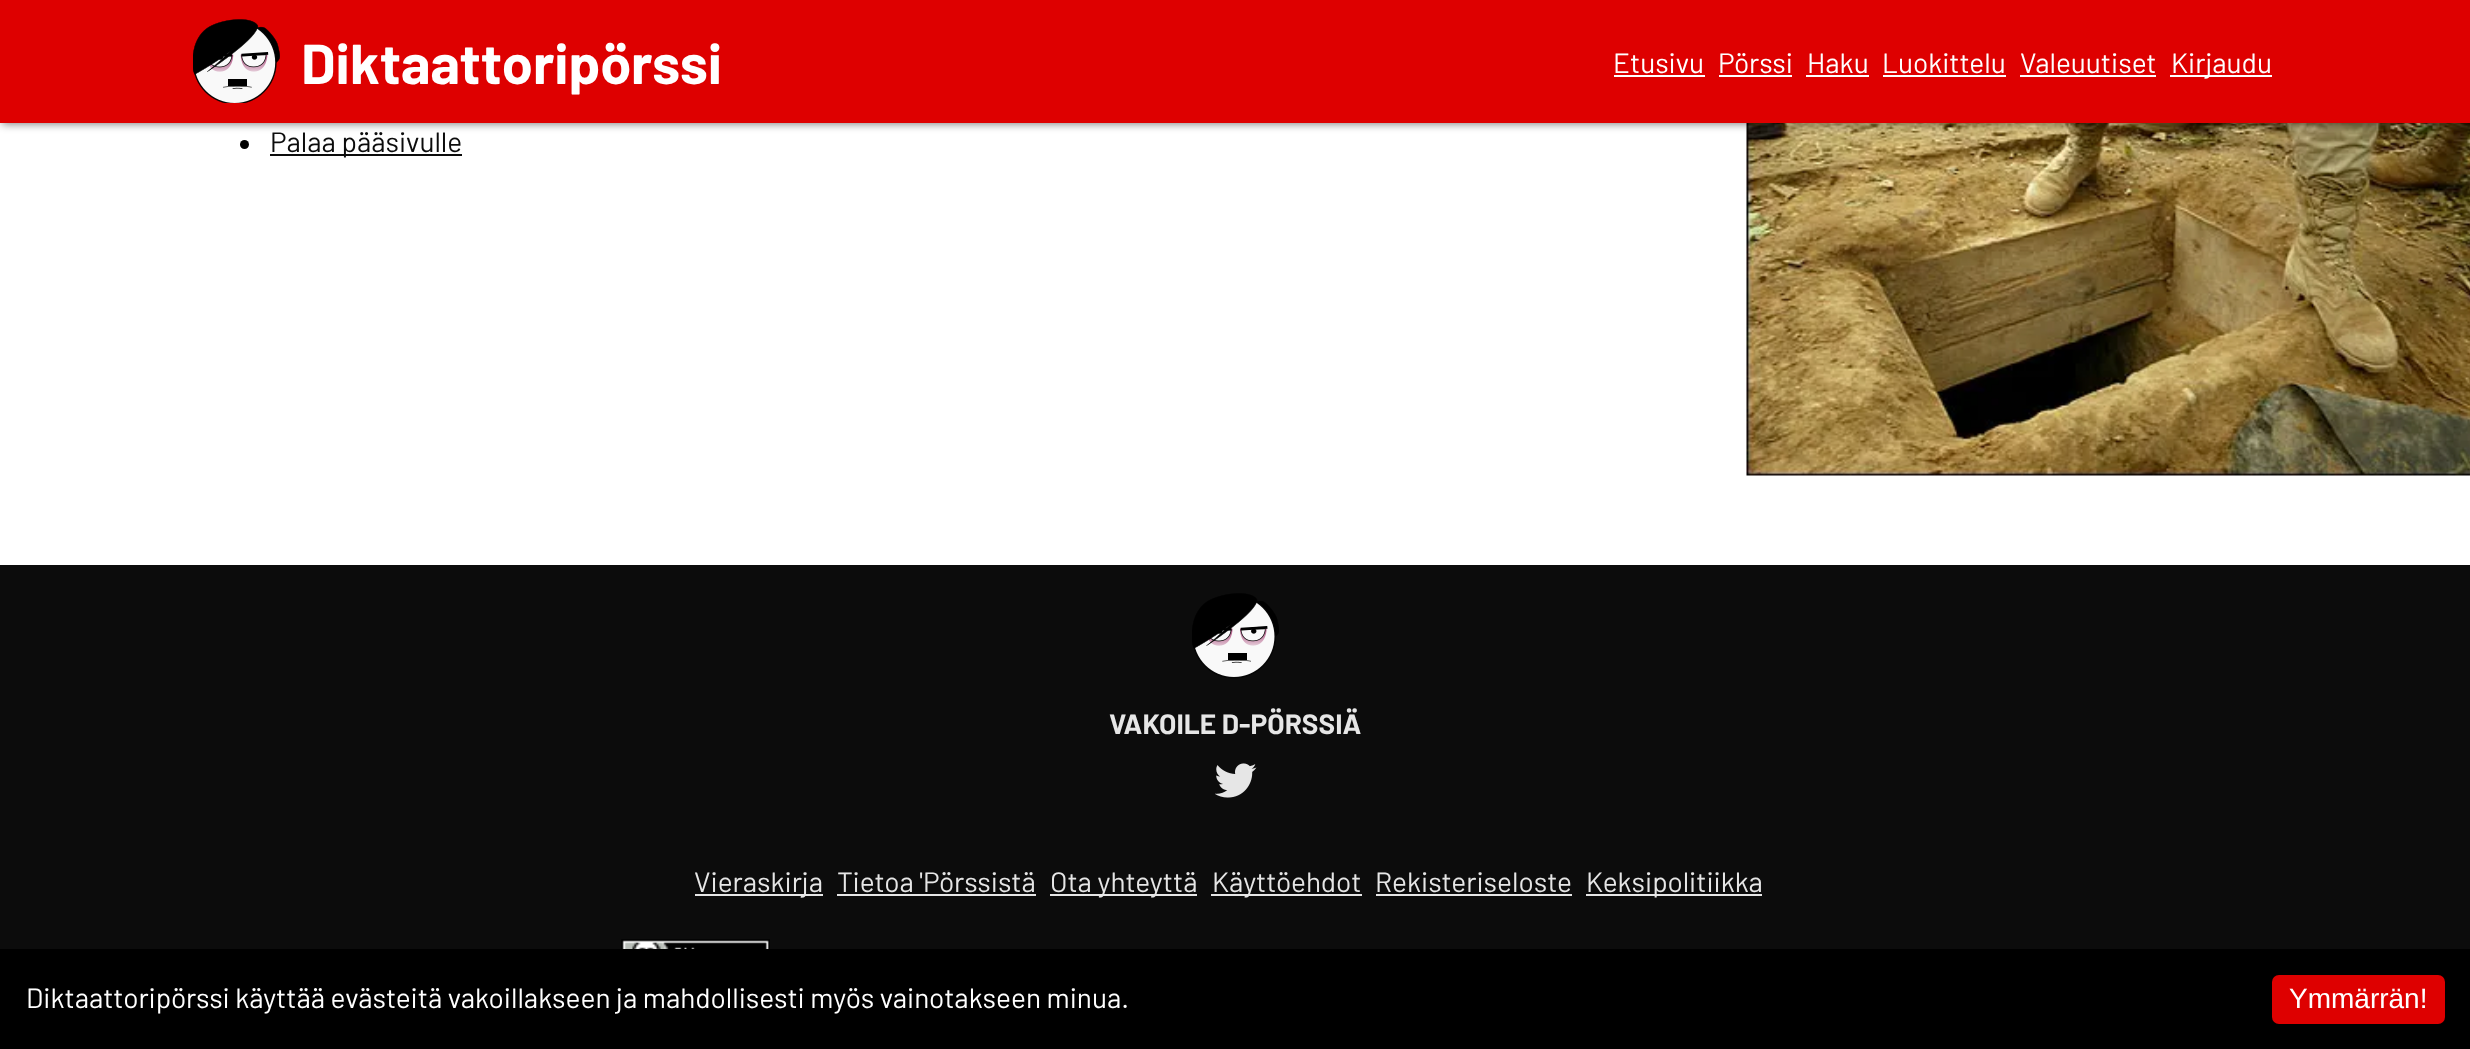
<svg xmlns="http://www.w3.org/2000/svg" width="2470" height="1049">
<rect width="100%" height="100%" fill="#fff"/>
<image x="1746" y="123" width="724" height="353" href="media/2.png"/>
<rect x="2" y="2" width="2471" height="122" fill="#00000080" filter="blur(4.5px)"/>
<rect width="2470" height="123" fill="#de0000"/>
<image x="193" y="19" width="87" height="84" href="media/1.png"/>
<text x="301" y="84" style="font-family:Barlow;font-size:56px;font-weight:bold;fill:#fff">Diktaattoripörssi</text>
<text x="1613" y="73" style="font-family:Barlow;font-size:28px;fill:#fff">Etusivu</text>
<rect x="1614" y="75" width="91" height="2" fill="#fff"/>
<text x="1718" y="73" style="font-family:Barlow;font-size:28px;fill:#fff">Pörssi</text>
<rect x="1719" y="75" width="73" height="2" fill="#fff"/>
<text x="1807" y="73" style="font-family:Barlow;font-size:28px;fill:#fff">Haku</text>
<rect x="1806" y="75" width="63" height="2" fill="#fff"/>
<text x="1882" y="73" style="font-family:Barlow;font-size:28px;fill:#fff">Luokittelu</text>
<rect x="1883" y="75" width="123" height="2" fill="#fff"/>
<text x="2020" y="73" style="font-family:Barlow;font-size:28px;fill:#fff">Valeuutiset</text>
<rect x="2020" y="75" width="136" height="2" fill="#fff"/>
<rect x="2170" y="75" width="102" height="2" fill="#fff"/>
<text x="2171" y="73" style="font-family:Barlow;font-size:28px;fill:#fff">Kirjaudu</text>
<circle cx="244.5" cy="144.5" r="4.5" fill="#000"/>
<rect x="270" y="154" width="192" height="2" fill="#0c0c0c"/>
<text x="270" y="152" style="font-family:Barlow;font-size:28px;fill:#0c0c0c">Palaa pääsivulle</text>
<rect y="565" width="2470" height="384" fill="#0c0c0c"/>
<image x="1192" y="593" width="87" height="86" href="media/3.png"/>
<text x="1109" y="734" style="font-family:Barlow;font-size:28px;font-weight:bold;fill:#e6e6e6">VAKOILE D-PÖRSSIÄ</text>
<image x="1215" y="763" width="42" height="35" href="media/4.png"/>
<rect x="695" y="894" width="128" height="2" fill="#e6e6e6"/>
<text x="694" y="892" style="font-family:Barlow;font-size:28px;fill:#e6e6e6">Vieraskirja</text>
<text x="837" y="892" style="font-family:Barlow;font-size:28px;fill:#e6e6e6">Tietoa 'Pörssistä</text>
<rect x="837" y="894" width="199" height="2" fill="#e6e6e6"/>
<rect x="1050" y="894" width="147" height="2" fill="#e6e6e6"/>
<text x="1050" y="892" style="font-family:Barlow;font-size:28px;fill:#e6e6e6">Ota yhteyttä</text>
<rect x="1211" y="894" width="151" height="2" fill="#e6e6e6"/>
<text x="1212" y="892" style="font-family:Barlow;font-size:28px;fill:#e6e6e6">Käyttöehdot</text>
<text x="1375" y="892" style="font-family:Barlow;font-size:28px;fill:#e6e6e6">Rekisteriseloste</text>
<rect x="1376" y="894" width="196" height="2" fill="#e6e6e6"/>
<rect x="1586" y="894" width="176" height="2" fill="#e6e6e6"/>
<text x="1586" y="892" style="font-family:Barlow;font-size:28px;fill:#e6e6e6">Keksipolitiikka</text>
<image x="621" y="939" width="149" height="10" href="media/5.png"/>
<rect y="949" width="2470" height="100" fill="#000"/>
<text x="26" y="1008" style="font-family:Barlow;font-size:28px;fill:#fff">Diktaattoripörssi käyttää evästeitä vakoillakseen ja mahdollisesti myös vainotakseen minua.</text>
<rect x="2272" y="975" width="173" height="49" rx="7" fill="#de0000"/>
<text x="2289" y="1008" style="font-family:Liberation Sans;font-size:28px;fill:#fff">Ymmärrän!</text>
</svg>
